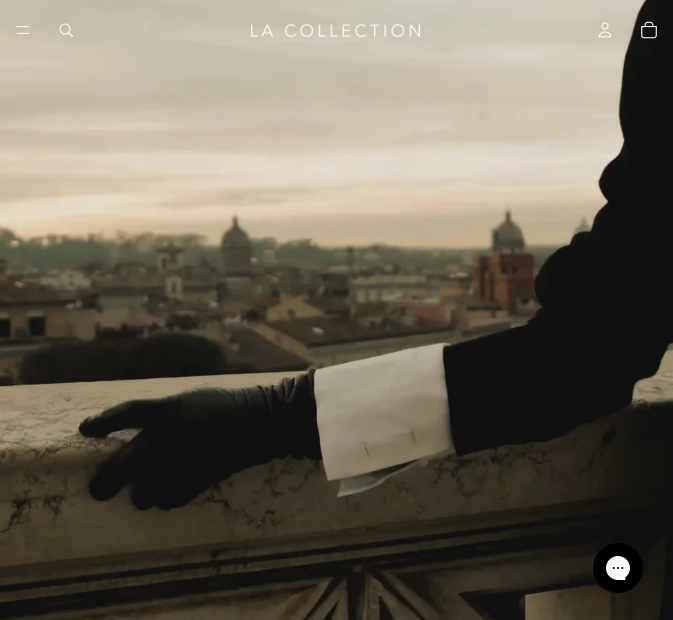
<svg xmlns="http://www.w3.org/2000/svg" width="673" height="620">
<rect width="100%" height="100%" fill="#fff"/>
<image x="0" y="0" width="673" height="620" href="media/1.png"/>
<image x="16" y="26" width="13" height="8" href="media/2.png"/>
<circle cx="65" cy="29" r="5" fill="none" stroke="#fff" stroke-width="1.1"/>
<path d="M69 33l3.5 3.5" fill="none" stroke="#fff" stroke-width="1.1" stroke-linecap="round" stroke-linejoin="round"/>
<image x="251" y="24" width="169" height="13" href="media/3.png"/>
<image x="598" y="22" width="14" height="16" href="media/4.png"/>
<image x="641" y="21" width="16" height="18" href="media/5.png"/>
<image x="593" y="543" width="50" height="50" href="media/6.png"/>
</svg>
